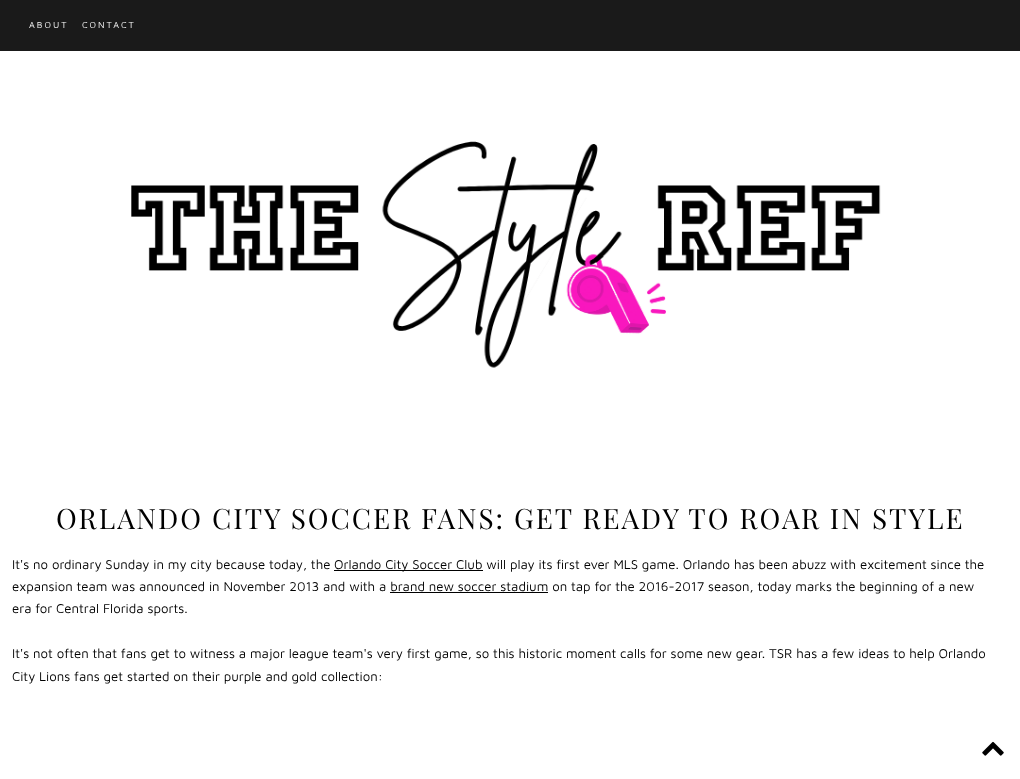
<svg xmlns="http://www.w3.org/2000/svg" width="1020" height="779">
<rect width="100%" height="100%" fill="#fff"/>
<rect width="1020" height="51" fill="#1a1a1a"/>
<text x="29" y="28" style="font-family:Maven Pro;font-size:9px;letter-spacing:2px;fill:#fff">ABOUT</text>
<text x="82" y="28" style="font-family:Maven Pro;font-size:9px;letter-spacing:2px;fill:#fff">CONTACT</text>
<image x="131" y="141" width="750" height="227" href="media/1.png"/>
<text x="56" y="529" style="font-family:Playfair Display SC;font-size:28px;letter-spacing:2px;fill:#000">ORLANDO CITY SOCCER FANS: GET READY TO ROAR IN STYLE</text>
<text x="12" y="569" style="font-family:Maven Pro;font-size:13.2px;fill:#000">It's no ordinary Sunday in my city because today, the</text>
<rect x="334" y="570" width="149" height="1" fill="#000"/>
<text x="334" y="569" style="font-family:Maven Pro;font-size:13.2px;fill:#000">Orlando City Soccer Club will play its first ever MLS game. Orlando has been abuzz with excitement since the</text>
<text x="12" y="591" style="font-family:Maven Pro;font-size:13.2px;fill:#000">expansion team was announced in November 2013 and with a brand new soccer stadium on tap for the 2016-2017 season, today marks the beginning of a new</text>
<rect x="390" y="592" width="158" height="1" fill="#000"/>
<text x="12" y="613" style="font-family:Maven Pro;font-size:13.2px;fill:#000">era for Central Florida sports.</text>
<text x="12" y="658" style="font-family:Maven Pro;font-size:13.2px;fill:#000">It's not often that fans get to witness a major league team's very first game, so this historic moment calls for some new gear. TSR has a few ideas to help Orlando</text>
<text x="12" y="681" style="font-family:Maven Pro;font-size:13.2px;fill:#000">City Lions fans get started on their purple and gold collection:</text>
<image x="982" y="741" width="22" height="15" href="media/2.png"/>
</svg>
